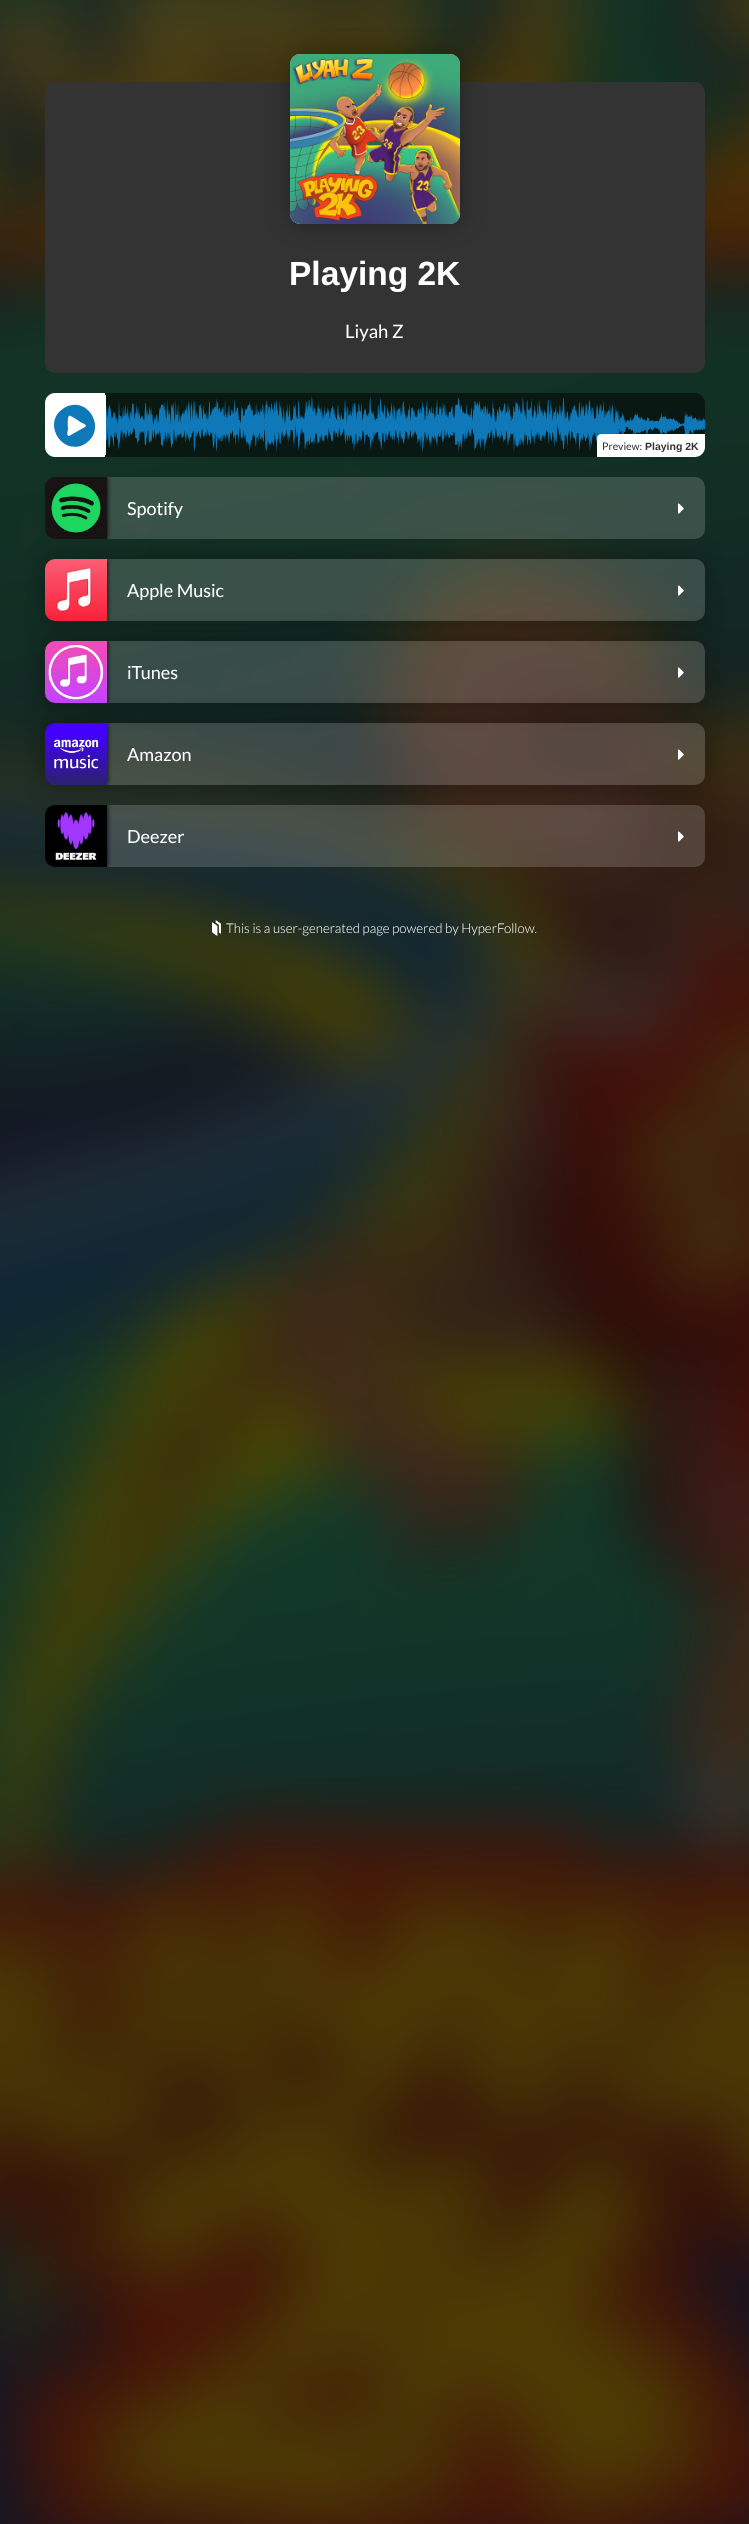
<svg xmlns="http://www.w3.org/2000/svg" width="749" height="2524">
<defs>
<clipPath id="clip1"><rect x="602" y="439" width="98" height="13"/></clipPath>
<clipPath id="clip2"><rect x="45" y="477" width="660" height="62" rx="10"/></clipPath>
<clipPath id="clip3"><rect x="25" y="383" width="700" height="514"/></clipPath>
<clipPath id="clip4"><path d="M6 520h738v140h-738zm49 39h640c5.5 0 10 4.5 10 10v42c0 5.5-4.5 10-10 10h-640c-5.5 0-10-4.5-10-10v-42c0-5.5 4.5-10 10-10z" clip-rule="evenodd"/></clipPath>
<clipPath id="clip5"><rect x="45" y="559" width="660" height="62" rx="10"/></clipPath>
<clipPath id="clip6"><path d="M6 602h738v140h-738zm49 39h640c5.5 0 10 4.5 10 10v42c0 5.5-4.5 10-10 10h-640c-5.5 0-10-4.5-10-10v-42c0-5.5 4.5-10 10-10z" clip-rule="evenodd"/></clipPath>
<clipPath id="clip7"><rect x="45" y="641" width="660" height="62" rx="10"/></clipPath>
<clipPath id="clip8"><path d="M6 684h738v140h-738zm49 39h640c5.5 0 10 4.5 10 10v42c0 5.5-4.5 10-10 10h-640c-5.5 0-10-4.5-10-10v-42c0-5.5 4.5-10 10-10z" clip-rule="evenodd"/></clipPath>
<clipPath id="clip9"><rect x="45" y="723" width="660" height="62" rx="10"/></clipPath>
<clipPath id="clip10"><rect x="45" y="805" width="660" height="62" rx="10"/></clipPath>
</defs>
<rect width="100%" height="100%" fill="#000"/>
<image x="0" y="0" width="749" height="2524" href="media/1.png"/>
<rect x="45" y="82" width="660" height="291" rx="10" fill="#333"/>
<rect x="290" y="54" width="170" height="170" rx="10" fill="#00000059" filter="blur(12.5px)"/>
<rect x="290" y="54" width="170" height="170" rx="10" fill="#ccc"/>
<image x="290" y="54" width="170" height="170" href="media/2.png"/>
<text x="289" y="285" style="font-family:Liberation Sans;font-size:33.5px;font-weight:bold;fill:#fff">Playing 2K</text>
<text x="345" y="338" style="font-family:Lato;font-size:18.5px;fill:#fff">Liyah Z</text>
<path d="M55 393h50v64h-50c-5.5 0-10-4.5-10-10v-44c0-5.5 4.5-10 10-10z" fill="#fff"/>
<path d="M64 408c24-14 44 22 21 36c-23 13-44-22-21-36zm21 19c4-2-5-5-5-5c-2-2-10-7-11-6c-2 1-1 11-1 13c0 1-2 7 1 7z" fill="#0f78b8"/>
<path d="M105 393h590c5.5 0 10 4.5 10 10v44c0 5.5-4.5 10-10 10h-590z" fill="#00000080"/>
<rect x="105" y="395" width="1" height="60" fill="#fff"/>
<image x="106" y="396" width="599" height="57" href="media/3.png"/>
<path d="M601 434h104v13c0 5.5-4.5 10-10 10h-98v-19c0-2 2-4 4-4z" fill="#fff"/>
<text x="602" y="450" style="font-family:Lato;font-size:10.5px;fill:#333">Preview:</text>
<g clip-path="url(#clip1)">
<text x="645" y="450" style="font-family:Liberation Sans;font-size:10.5px;font-weight:bold;fill:#333">Playing 2K</text>
</g>
<rect x="45" y="477" width="660" height="62" rx="10" fill="#ffffff2b"/>
<g clip-path="url(#clip2)">
<rect x="45" y="477" width="62" height="62" fill="#000" filter="blur(2.5px)"/>
</g>
<image x="45" y="477" width="62" height="62" href="media/4.png"/>
<text x="127" y="515" style="font-family:Lato;font-size:18px;fill:#fff">Spotify</text>
<image x="678" y="503" width="6" height="11" href="media/5.png"/>
<g clip-path="url(#clip3)">
<g clip-path="url(#clip4)">
<rect x="45" y="559" width="660" height="62" rx="10" fill="#00000059" filter="blur(12.5px)"/>
</g>
</g>
<rect x="45" y="559" width="660" height="62" rx="10" fill="#ffffff2b"/>
<g clip-path="url(#clip5)">
<rect x="45" y="559" width="62" height="62" fill="#000" filter="blur(2.5px)"/>
</g>
<image x="45" y="559" width="62" height="62" href="media/6.png"/>
<text x="127" y="597" style="font-family:Lato;font-size:18px;fill:#fff">Apple Music</text>
<image x="678" y="585" width="6" height="11" href="media/7.png"/>
<g clip-path="url(#clip3)">
<g clip-path="url(#clip6)">
<rect x="45" y="641" width="660" height="62" rx="10" fill="#00000059" filter="blur(12.5px)"/>
</g>
</g>
<rect x="45" y="641" width="660" height="62" rx="10" fill="#ffffff2b"/>
<g clip-path="url(#clip7)">
<rect x="45" y="641" width="62" height="62" fill="#000" filter="blur(2.5px)"/>
</g>
<image x="45" y="641" width="62" height="62" href="media/8.png"/>
<text x="127" y="679" style="font-family:Lato;font-size:18px;fill:#fff">iTunes</text>
<image x="678" y="667" width="6" height="11" href="media/9.png"/>
<g clip-path="url(#clip3)">
<g clip-path="url(#clip8)">
<rect x="45" y="723" width="660" height="62" rx="10" fill="#00000059" filter="blur(12.5px)"/>
</g>
</g>
<rect x="45" y="723" width="660" height="62" rx="10" fill="#ffffff2b"/>
<g clip-path="url(#clip9)">
<rect x="45" y="723" width="62" height="62" fill="#000" filter="blur(2.5px)"/>
</g>
<image x="45" y="723" width="62" height="62" href="media/10.png"/>
<text x="127" y="761" style="font-family:Lato;font-size:18px;fill:#fff">Amazon</text>
<image x="678" y="749" width="6" height="11" href="media/11.png"/>
<rect x="45" y="805" width="660" height="62" rx="10" fill="#ffffff2b"/>
<g clip-path="url(#clip10)">
<rect x="45" y="805" width="62" height="62" fill="#000" filter="blur(2.5px)"/>
</g>
<image x="45" y="805" width="62" height="62" href="media/12.png"/>
<text x="127" y="843" style="font-family:Lato;font-size:18px;fill:#fff">Deezer</text>
<image x="678" y="831" width="6" height="11" href="media/13.png"/>
<image x="212" y="920" width="9" height="16" href="media/14.png"/>
<text x="226" y="933" style="font-family:Lato;font-size:13.3px;font-weight:300;fill:#fff">This is a user-generated page powered by HyperFollow.</text>
</svg>
